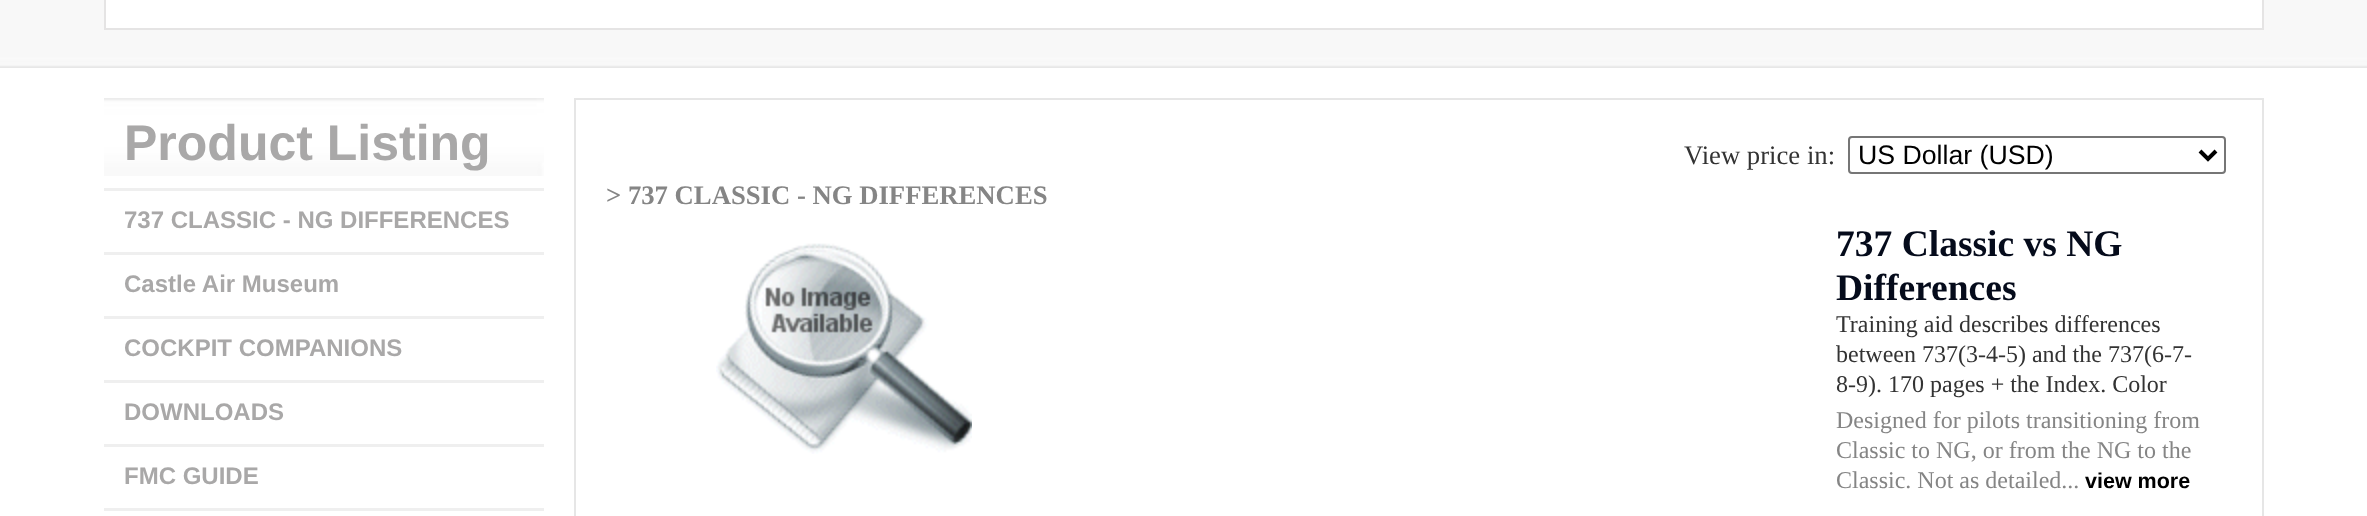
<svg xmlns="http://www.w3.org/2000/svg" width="2367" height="516">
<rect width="100%" height="100%" fill="#fff"/>
<image x="0" y="0" width="2367" height="68" href="media/1.png"/>
<rect x="105" y="-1" width="2158" height="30" fill="#fff" stroke="#e5e4e4" stroke-width="2"/>
<image x="104" y="98" width="440" height="78" href="media/2.png"/>
<text x="124" y="160" style="font-family:Liberation Sans;font-size:50px;font-weight:bold;fill:#a9a8a8">Product Listing</text>
<rect x="104" y="188" width="440" height="3" fill="#efefef"/>
<text x="124" y="228" style="font-family:Liberation Sans;font-size:24px;font-weight:bold;fill:#a9a8a8">737 CLASSIC - NG DIFFERENCES</text>
<rect x="104" y="252" width="440" height="3" fill="#efefef"/>
<text x="124" y="292" style="font-family:Liberation Sans;font-size:24px;font-weight:bold;fill:#a9a8a8">Castle Air Museum</text>
<rect x="104" y="316" width="440" height="3" fill="#efefef"/>
<text x="124" y="356" style="font-family:Liberation Sans;font-size:24px;font-weight:bold;fill:#a9a8a8">COCKPIT COMPANIONS</text>
<rect x="104" y="380" width="440" height="3" fill="#efefef"/>
<text x="124" y="420" style="font-family:Liberation Sans;font-size:24px;font-weight:bold;fill:#a9a8a8">DOWNLOADS</text>
<rect x="104" y="444" width="440" height="3" fill="#efefef"/>
<text x="124" y="484" style="font-family:Liberation Sans;font-size:24px;font-weight:bold;fill:#a9a8a8">FMC GUIDE</text>
<rect x="104" y="508" width="440" height="3" fill="#efefef"/>
<rect x="575" y="99" width="1688" height="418" fill="none" stroke="#e6e6e6" stroke-width="2"/>
<text x="1684" y="164" style="font-family:Liberation Serif;font-size:26.7px;fill:#333">View price in:</text>
<rect x="1849" y="137" width="376" height="36" rx="3" fill="none" stroke="#767676" stroke-width="2"/>
<path d="M2200 151l8 8l8-8" fill="none" stroke="#000" stroke-width="4"/>
<text x="1858" y="164" style="font-family:Liberation Sans;font-size:26.7px;fill:#000">US Dollar (USD)</text>
<text x="606" y="204" style="font-family:Liberation Serif;font-size:26.7px;font-weight:bold;fill:#858585">&gt; 737 CLASSIC - NG DIFFERENCES</text>
<image x="716" y="243" width="256" height="211" href="media/3.png"/>
<text x="1836" y="256" style="font-family:Liberation Serif;font-size:37.5px;font-weight:bold;fill:#050b1b">737 Classic vs NG</text>
<text x="1836" y="300" style="font-family:Liberation Serif;font-size:37.5px;font-weight:bold;fill:#050b1b">Differences</text>
<text x="1836" y="332" style="font-family:Liberation Serif;font-size:24px;fill:#333">Training aid describes differences</text>
<text x="1836" y="362" style="font-family:Liberation Serif;font-size:24px;fill:#333">between 737(3-4-5) and the 737(6-7-</text>
<text x="1836" y="392" style="font-family:Liberation Serif;font-size:24px;fill:#333">8-9). 170 pages + the Index. Color</text>
<text x="1836" y="428" style="font-family:Liberation Serif;font-size:24px;fill:#858585">Designed for pilots transitioning from</text>
<text x="1836" y="458" style="font-family:Liberation Serif;font-size:24px;fill:#858585">Classic to NG, or from the NG to the</text>
<text x="1836" y="488" style="font-family:Liberation Serif;font-size:24px;fill:#858585">Classic. Not as detailed...</text>
<text x="2085" y="488" style="font-family:Liberation Sans;font-size:21.5px;font-weight:bold;fill:#000">view more</text>
</svg>
